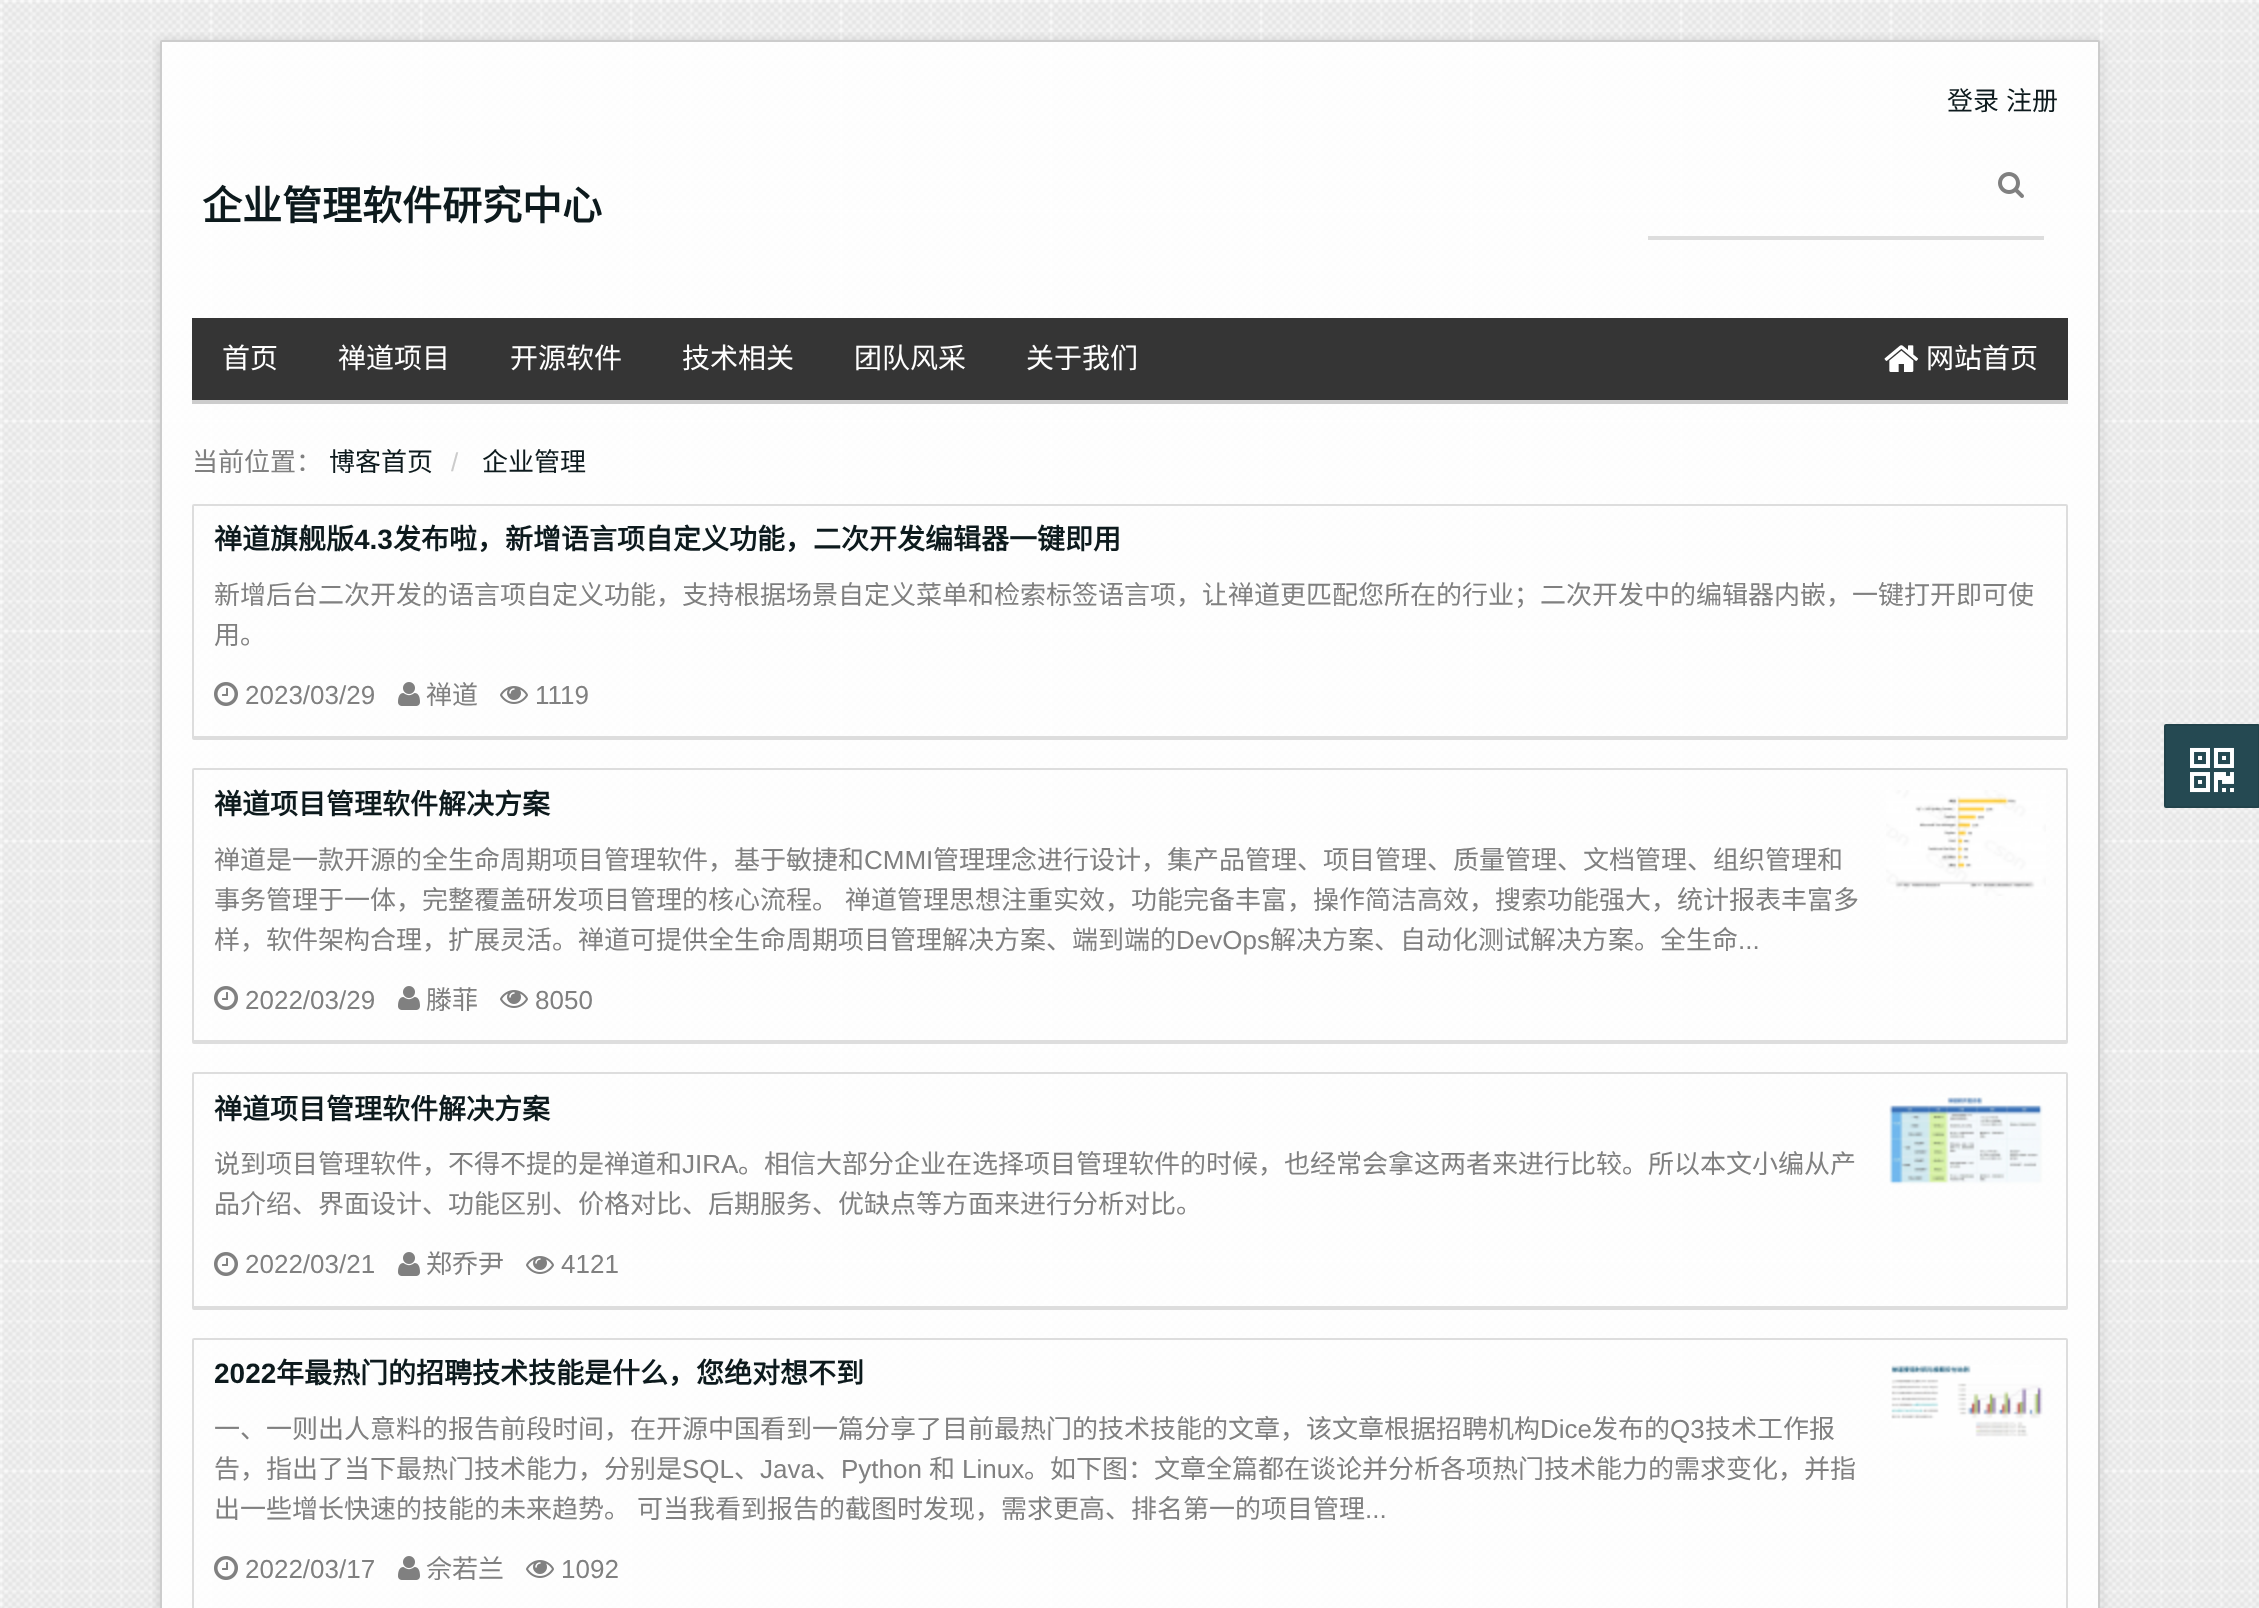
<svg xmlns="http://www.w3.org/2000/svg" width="2259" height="1608">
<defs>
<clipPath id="clip1"><path d="M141 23h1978v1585h-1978zm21 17h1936c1 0 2 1 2 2v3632c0 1-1 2-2 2h-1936c-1 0-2-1-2-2v-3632c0-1 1-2 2-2z" clip-rule="evenodd"/></clipPath>
</defs>
<rect width="100%" height="100%" fill="#fff"/>
<image x="0" y="0" width="2259" height="1608" href="media/1.png"/>
<g clip-path="url(#clip1)">
<rect x="160" y="42" width="1940" height="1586" rx="2" fill="#00000026" filter="blur(6px)"/>
</g>
<rect x="161" y="41" width="1938" height="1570" rx="1" fill="#ffffffe6" stroke="#ccc" stroke-width="2"/>
<text x="1947" y="110" style="font-family:Noto Sans CJK SC;font-size:26px;fill:#0d1a1d">登录</text>
<text x="2006" y="110" style="font-family:Noto Sans CJK SC;font-size:26px;fill:#0d1a1d">注册</text>
<text x="202" y="220" style="font-family:Noto Sans CJK SC;font-size:40px;font-weight:bold;fill:#0d1a1d">企业管理软件研究中心</text>
<image x="1998" y="172" width="26" height="26" href="media/2.png"/>
<rect x="1648" y="236" width="396" height="4" fill="#ddd"/>
<rect x="192" y="318" width="1876" height="82" fill="#353535"/>
<rect x="192" y="400" width="1876" height="4" fill="#ccc"/>
<text x="222" y="368" style="font-family:Noto Sans CJK SC;font-size:28px;fill:#fff">首页</text>
<text x="338" y="368" style="font-family:Noto Sans CJK SC;font-size:28px;fill:#fff">禅道项目</text>
<text x="510" y="368" style="font-family:Noto Sans CJK SC;font-size:28px;fill:#fff">开源软件</text>
<text x="682" y="368" style="font-family:Noto Sans CJK SC;font-size:28px;fill:#fff">技术相关</text>
<text x="854" y="368" style="font-family:Noto Sans CJK SC;font-size:28px;fill:#fff">团队风采</text>
<text x="1026" y="368" style="font-family:Noto Sans CJK SC;font-size:28px;fill:#fff">关于我们</text>
<image x="1884" y="345" width="35" height="27" href="media/3.png"/>
<text x="1926" y="368" style="font-family:Noto Sans CJK SC;font-size:28px;fill:#fff">网站首页</text>
<text x="192" y="471" style="font-family:Noto Sans CJK SC;font-size:26px;fill:#808080">当前位置：</text>
<text x="329" y="471" style="font-family:Noto Sans CJK SC;font-size:26px;fill:#0d1a1d">博客首页</text>
<text x="451" y="471" style="font-family:Liberation Sans;font-size:26px;fill:#ccc">/</text>
<text x="482" y="471" style="font-family:Noto Sans CJK SC;font-size:26px;fill:#0d1a1d">企业管理</text>
<rect x="193" y="505" width="1874" height="234" rx="1" fill="none" stroke="#ddd" stroke-width="2"/>
<rect x="194" y="736" width="1874" height="2" fill="#ddd"/>
<text x="214" y="549" style="font-family:Noto Sans CJK SC;font-size:28px;font-weight:bold;fill:#0d1a1d">禅道旗舰版</text>
<text x="354" y="549" style="font-family:Liberation Sans;font-size:28px;font-weight:bold;fill:#0d1a1d">4.3</text>
<text x="393" y="549" style="font-family:Noto Sans CJK SC;font-size:28px;font-weight:bold;fill:#0d1a1d">发布啦，新增语言项自定义功能，二次开发编辑器一键即用</text>
<text x="214" y="604" style="font-family:Noto Sans CJK SC;font-size:26px;fill:#808080">新增后台二次开发的语言项自定义功能，支持根据场景自定义菜单和检索标签语言项，让禅道更匹配您所在的行业；二次开发中的编辑器内嵌，一键打开即可使</text>
<text x="214" y="644" style="font-family:Noto Sans CJK SC;font-size:26px;fill:#808080">用。</text>
<image x="214" y="682" width="24" height="24" href="media/4.png"/>
<text x="245" y="704" style="font-family:Liberation Sans;font-size:26px;fill:#808080">2023/03/29</text>
<image x="398" y="682" width="22" height="24" href="media/5.png"/>
<text x="426" y="704" style="font-family:Noto Sans CJK SC;font-size:26px;fill:#808080">禅道</text>
<image x="500" y="686" width="28" height="18" href="media/6.png"/>
<text x="535" y="704" style="font-family:Liberation Sans;font-size:26px;fill:#808080">1119</text>
<rect x="193" y="769" width="1874" height="274" rx="1" fill="none" stroke="#ddd" stroke-width="2"/>
<rect x="194" y="1040" width="1874" height="2" fill="#ddd"/>
<text x="214" y="814" style="font-family:Noto Sans CJK SC;font-size:28px;font-weight:bold;fill:#0d1a1d">禅道项目管理软件解决方案</text>
<image x="1886" y="790" width="160" height="106" href="media/7.png"/>
<text x="214" y="869" style="font-family:Noto Sans CJK SC;font-size:26px;fill:#808080">禅道是一款开源的全生命周期项目管理软件，基于敏捷和</text>
<text x="864" y="869" style="font-family:Liberation Sans;font-size:26px;fill:#808080">CMMI</text>
<text x="933" y="869" style="font-family:Noto Sans CJK SC;font-size:26px;fill:#808080">管理理念进行设计，集产品管理、项目管理、质量管理、文档管理、组织管理和</text>
<text x="214" y="909" style="font-family:Noto Sans CJK SC;font-size:26px;fill:#808080">事务管理于一体，完整覆盖研发项目管理的核心流程。</text>
<text x="845" y="909" style="font-family:Noto Sans CJK SC;font-size:26px;fill:#808080">禅道管理思想注重实效，功能完备丰富，操作简洁高效，搜索功能强大，统计报表丰富多</text>
<text x="214" y="949" style="font-family:Noto Sans CJK SC;font-size:26px;fill:#808080">样，软件架构合理，扩展灵活。禅道可提供全生命周期项目管理解决方案、端到端的</text>
<text x="1176" y="949" style="font-family:Liberation Sans;font-size:26px;fill:#808080">DevOps</text>
<text x="1270" y="949" style="font-family:Noto Sans CJK SC;font-size:26px;fill:#808080">解决方案、自动化测试解决方案。全生命</text>
<text x="1738" y="949" style="font-family:Liberation Sans;font-size:26px;fill:#808080">...</text>
<image x="214" y="986" width="24" height="24" href="media/8.png"/>
<text x="245" y="1009" style="font-family:Liberation Sans;font-size:26px;fill:#808080">2022/03/29</text>
<image x="398" y="986" width="22" height="24" href="media/9.png"/>
<text x="426" y="1009" style="font-family:Noto Sans CJK SC;font-size:26px;fill:#808080">滕菲</text>
<image x="500" y="990" width="28" height="18" href="media/10.png"/>
<text x="535" y="1009" style="font-family:Liberation Sans;font-size:26px;fill:#808080">8050</text>
<rect x="193" y="1073" width="1874" height="236" rx="1" fill="none" stroke="#ddd" stroke-width="2"/>
<rect x="194" y="1306" width="1874" height="2" fill="#ddd"/>
<text x="214" y="1119" style="font-family:Noto Sans CJK SC;font-size:28px;font-weight:bold;fill:#0d1a1d">禅道项目管理软件解决方案</text>
<image x="1889" y="1097" width="154" height="88" href="media/11.png"/>
<text x="214" y="1173" style="font-family:Noto Sans CJK SC;font-size:26px;fill:#808080">说到项目管理软件，不得不提的是禅道和</text>
<text x="682" y="1173" style="font-family:Liberation Sans;font-size:26px;fill:#808080">JIRA</text>
<text x="738" y="1173" style="font-family:Noto Sans CJK SC;font-size:26px;fill:#808080">。相信大部分企业在选择项目管理软件的时候，也经常会拿这两者来进行比较。所以本文小编从产</text>
<text x="214" y="1213" style="font-family:Noto Sans CJK SC;font-size:26px;fill:#808080">品介绍、界面设计、功能区别、价格对比、后期服务、优缺点等方面来进行分析对比。</text>
<image x="214" y="1252" width="24" height="24" href="media/12.png"/>
<text x="245" y="1273" style="font-family:Liberation Sans;font-size:26px;fill:#808080">2022/03/21</text>
<image x="398" y="1252" width="22" height="24" href="media/13.png"/>
<text x="426" y="1273" style="font-family:Noto Sans CJK SC;font-size:26px;fill:#808080">郑乔尹</text>
<image x="526" y="1256" width="28" height="18" href="media/14.png"/>
<text x="561" y="1273" style="font-family:Liberation Sans;font-size:26px;fill:#808080">4121</text>
<rect x="193" y="1339" width="1874" height="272" rx="1" fill="none" stroke="#ddd" stroke-width="2"/>
<text x="214" y="1383" style="font-family:Liberation Sans;font-size:28px;font-weight:bold;fill:#0d1a1d">2022</text>
<text x="276" y="1383" style="font-family:Noto Sans CJK SC;font-size:28px;font-weight:bold;fill:#0d1a1d">年最热门的招聘技术技能是什么，您绝对想不到</text>
<image x="1891" y="1365" width="152" height="72" href="media/15.png"/>
<text x="214" y="1438" style="font-family:Noto Sans CJK SC;font-size:26px;fill:#808080">一、一则出人意料的报告前段时间，在开源中国看到一篇分享了目前最热门的技术技能的文章，该文章根据招聘机构</text>
<text x="1540" y="1438" style="font-family:Liberation Sans;font-size:26px;fill:#808080">Dice</text>
<text x="1592" y="1438" style="font-family:Noto Sans CJK SC;font-size:26px;fill:#808080">发布的</text>
<text x="1670" y="1438" style="font-family:Liberation Sans;font-size:26px;fill:#808080">Q3</text>
<text x="1705" y="1438" style="font-family:Noto Sans CJK SC;font-size:26px;fill:#808080">技术工作报</text>
<text x="214" y="1478" style="font-family:Noto Sans CJK SC;font-size:26px;fill:#808080">告，指出了当下最热门技术能力，分别是</text>
<text x="682" y="1478" style="font-family:Liberation Sans;font-size:26px;fill:#808080">SQL</text>
<text x="734" y="1478" style="font-family:Noto Sans CJK SC;font-size:26px;fill:#808080">、</text>
<text x="760" y="1478" style="font-family:Liberation Sans;font-size:26px;fill:#808080">Java</text>
<text x="815" y="1478" style="font-family:Noto Sans CJK SC;font-size:26px;fill:#808080">、</text>
<text x="841" y="1478" style="font-family:Liberation Sans;font-size:26px;fill:#808080">Python</text>
<text x="929" y="1478" style="font-family:Noto Sans CJK SC;font-size:26px;fill:#808080">和</text>
<text x="962" y="1478" style="font-family:Liberation Sans;font-size:26px;fill:#808080">Linux</text>
<text x="1024" y="1478" style="font-family:Noto Sans CJK SC;font-size:26px;fill:#808080">。如下图：文章全篇都在谈论并分析各项热门技术能力的需求变化，并指</text>
<text x="214" y="1518" style="font-family:Noto Sans CJK SC;font-size:26px;fill:#808080">出一些增长快速的技能的未来趋势。</text>
<text x="637" y="1518" style="font-family:Noto Sans CJK SC;font-size:26px;fill:#808080">可当我看到报告的截图时发现，需求更高、排名第一的项目管理</text>
<text x="1365" y="1518" style="font-family:Liberation Sans;font-size:26px;fill:#808080">...</text>
<image x="214" y="1556" width="24" height="24" href="media/16.png"/>
<text x="245" y="1578" style="font-family:Liberation Sans;font-size:26px;fill:#808080">2022/03/17</text>
<image x="398" y="1556" width="22" height="24" href="media/17.png"/>
<text x="426" y="1578" style="font-family:Noto Sans CJK SC;font-size:26px;fill:#808080">佘若兰</text>
<image x="526" y="1560" width="28" height="18" href="media/18.png"/>
<text x="561" y="1578" style="font-family:Liberation Sans;font-size:26px;fill:#808080">1092</text>
<rect x="2165" y="725" width="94" height="82" rx="1" fill="#254952" stroke="#22434b" stroke-width="2"/>
<image x="2190" y="747" width="44" height="46" href="media/19.png"/>
</svg>
